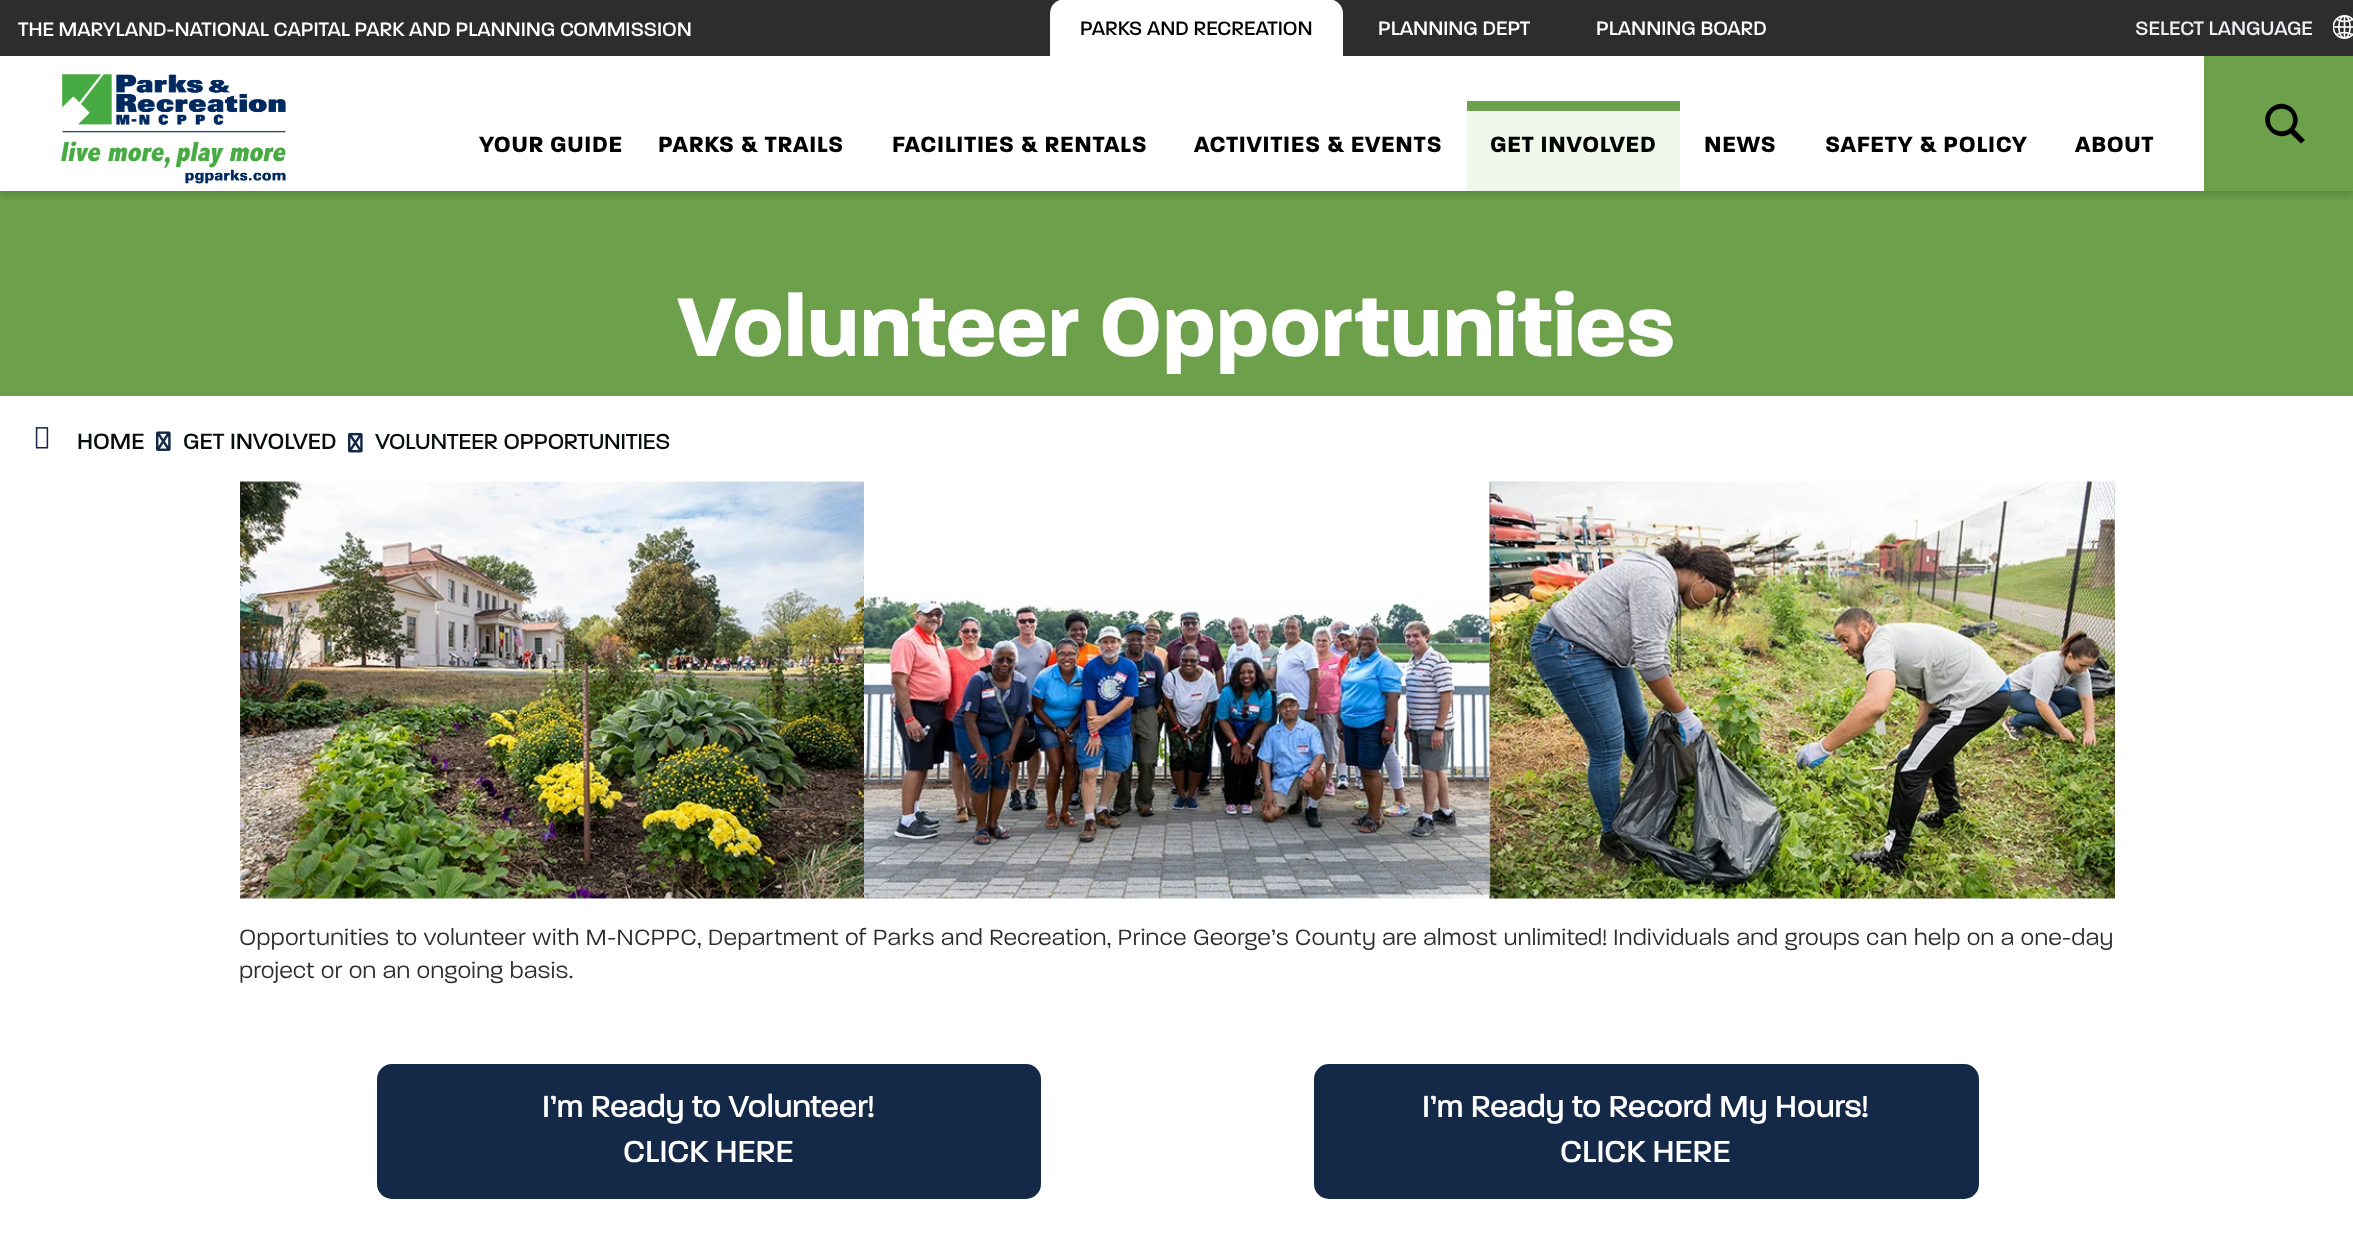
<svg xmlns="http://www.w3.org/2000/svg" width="2353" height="1235">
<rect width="100%" height="100%" fill="#fff"/>
<rect y="191" width="2353" height="205" fill="#6ca04a"/>
<rect y="5" width="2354" height="190" fill="#00000029" filter="blur(4.5px)"/>
<rect y="56" width="2204" height="135" fill="#fff"/>
<rect width="2353" height="56" fill="#2e2d2d"/>
<text x="18" y="36" style="font-family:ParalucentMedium;font-size:21px;font-weight:500;fill:#fff">THE MARYLAND-NATIONAL CAPITAL PARK AND PLANNING COMMISSION</text>
<path d="M1065-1h263c8.5 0 15 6.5 15 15v42h-293v-42c0-8.5 6.5-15 15-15z" fill="#fff"/>
<text x="1080" y="35" style="font-family:ParalucentMedium;font-size:21px;font-weight:500;fill:#010101">PARKS AND RECREATION</text>
<text x="1378" y="35" style="font-family:ParalucentMedium;font-size:21px;font-weight:500;fill:#fff">PLANNING DEPT</text>
<text x="1596" y="35" style="font-family:ParalucentMedium;font-size:21px;font-weight:500;fill:#fff">PLANNING BOARD</text>
<image x="2333" y="15" width="20" height="24" href="media/1.png"/>
<text x="2135" y="35" style="font-family:ParalucentMedium;font-size:21px;font-weight:500;fill:#eef0f4">SELECT LANGUAGE</text>
<image x="61" y="74" width="225" height="110" href="media/2.png"/>
<text x="479" y="152" style="font-family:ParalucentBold;font-size:24px;font-weight:bold;letter-spacing:0.7px;fill:#010101">YOUR GUIDE</text>
<text x="658" y="152" style="font-family:ParalucentBold;font-size:24px;font-weight:bold;letter-spacing:0.7px;fill:#010101">PARKS &amp; TRAILS</text>
<text x="892" y="152" style="font-family:ParalucentBold;font-size:24px;font-weight:bold;letter-spacing:0.7px;fill:#010101">FACILITIES &amp; RENTALS</text>
<text x="1194" y="152" style="font-family:ParalucentBold;font-size:24px;font-weight:bold;letter-spacing:0.7px;fill:#010101">ACTIVITIES &amp; EVENTS</text>
<rect x="1467" y="111" width="213" height="80" fill="#f0f8ec"/>
<rect x="1467" y="101" width="213" height="10" fill="#6ca04a"/>
<text x="1490" y="152" style="font-family:ParalucentBold;font-size:24px;font-weight:bold;letter-spacing:0.7px;fill:#010101">GET INVOLVED</text>
<text x="1704" y="152" style="font-family:ParalucentBold;font-size:24px;font-weight:bold;letter-spacing:0.7px;fill:#010101">NEWS</text>
<text x="1825" y="152" style="font-family:ParalucentBold;font-size:24px;font-weight:bold;letter-spacing:0.7px;fill:#010101">SAFETY &amp; POLICY</text>
<text x="2075" y="152" style="font-family:ParalucentBold;font-size:24px;font-weight:bold;letter-spacing:0.7px;fill:#010101">ABOUT</text>
<rect x="2204" y="56" width="149" height="135" fill="#6ca04a"/>
<path d="M2305 140l-10.5-10.5c11.5-15.5-10-35-24.5-21c-14 14 5 35.5 20.5 25l10.5 10zm-35-20c0-15 23-15 23 0c0 15-23 15-23 0z" fill="#000"/>
<text x="678" y="356" style="font-family:ParalucentBold;font-size:90px;font-weight:bold;fill:#fff">Volunteer Opportunities</text>
<image x="35" y="427" width="14" height="22" href="media/3.png"/>
<text x="77" y="449" style="font-family:ParalucentMedium;font-size:24px;font-weight:500;fill:#080d10">HOME</text>
<image x="156" y="431" width="15" height="20" href="media/4.png"/>
<text x="183" y="449" style="font-family:ParalucentMedium;font-size:24px;font-weight:500;fill:#080d10">GET INVOLVED</text>
<image x="348" y="432" width="15" height="21" href="media/5.png"/>
<text x="375" y="449" style="font-family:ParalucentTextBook;font-size:22.5px;font-weight:bold;fill:#080d10">VOLUNTEER OPPORTUNITIES</text>
<image x="240" y="481" width="624" height="418" href="media/6.png"/>
<image x="864" y="594" width="626" height="305" href="media/7.png"/>
<image x="1489" y="481" width="626" height="418" href="media/8.png"/>
<text x="239" y="945" style="font-family:ParalucentTextBook;font-size:24px;fill:#2e2d2d">Opportunities to volunteer with M-NCPPC, Department of Parks and Recreation, Prince George’s County are almost unlimited! Individuals and groups can help on a one-day</text>
<text x="239" y="978" style="font-family:ParalucentTextBook;font-size:24px;fill:#2e2d2d">project or on an ongoing basis.</text>
<rect x="377" y="1064" width="664" height="135" rx="15" fill="#142848"/>
<text x="542" y="1117" style="font-family:ParalucentMedium;font-size:33px;font-weight:500;fill:#fff">I’m Ready to Volunteer!</text>
<text x="623" y="1162" style="font-family:ParalucentMedium;font-size:33px;font-weight:500;fill:#fff">CLICK HERE</text>
<rect x="1314" y="1064" width="665" height="135" rx="15" fill="#142848"/>
<text x="1422" y="1117" style="font-family:ParalucentMedium;font-size:33px;font-weight:500;fill:#fff">I’m Ready to Record My Hours!</text>
<text x="1560" y="1162" style="font-family:ParalucentMedium;font-size:33px;font-weight:500;fill:#fff">CLICK HERE</text>
</svg>
